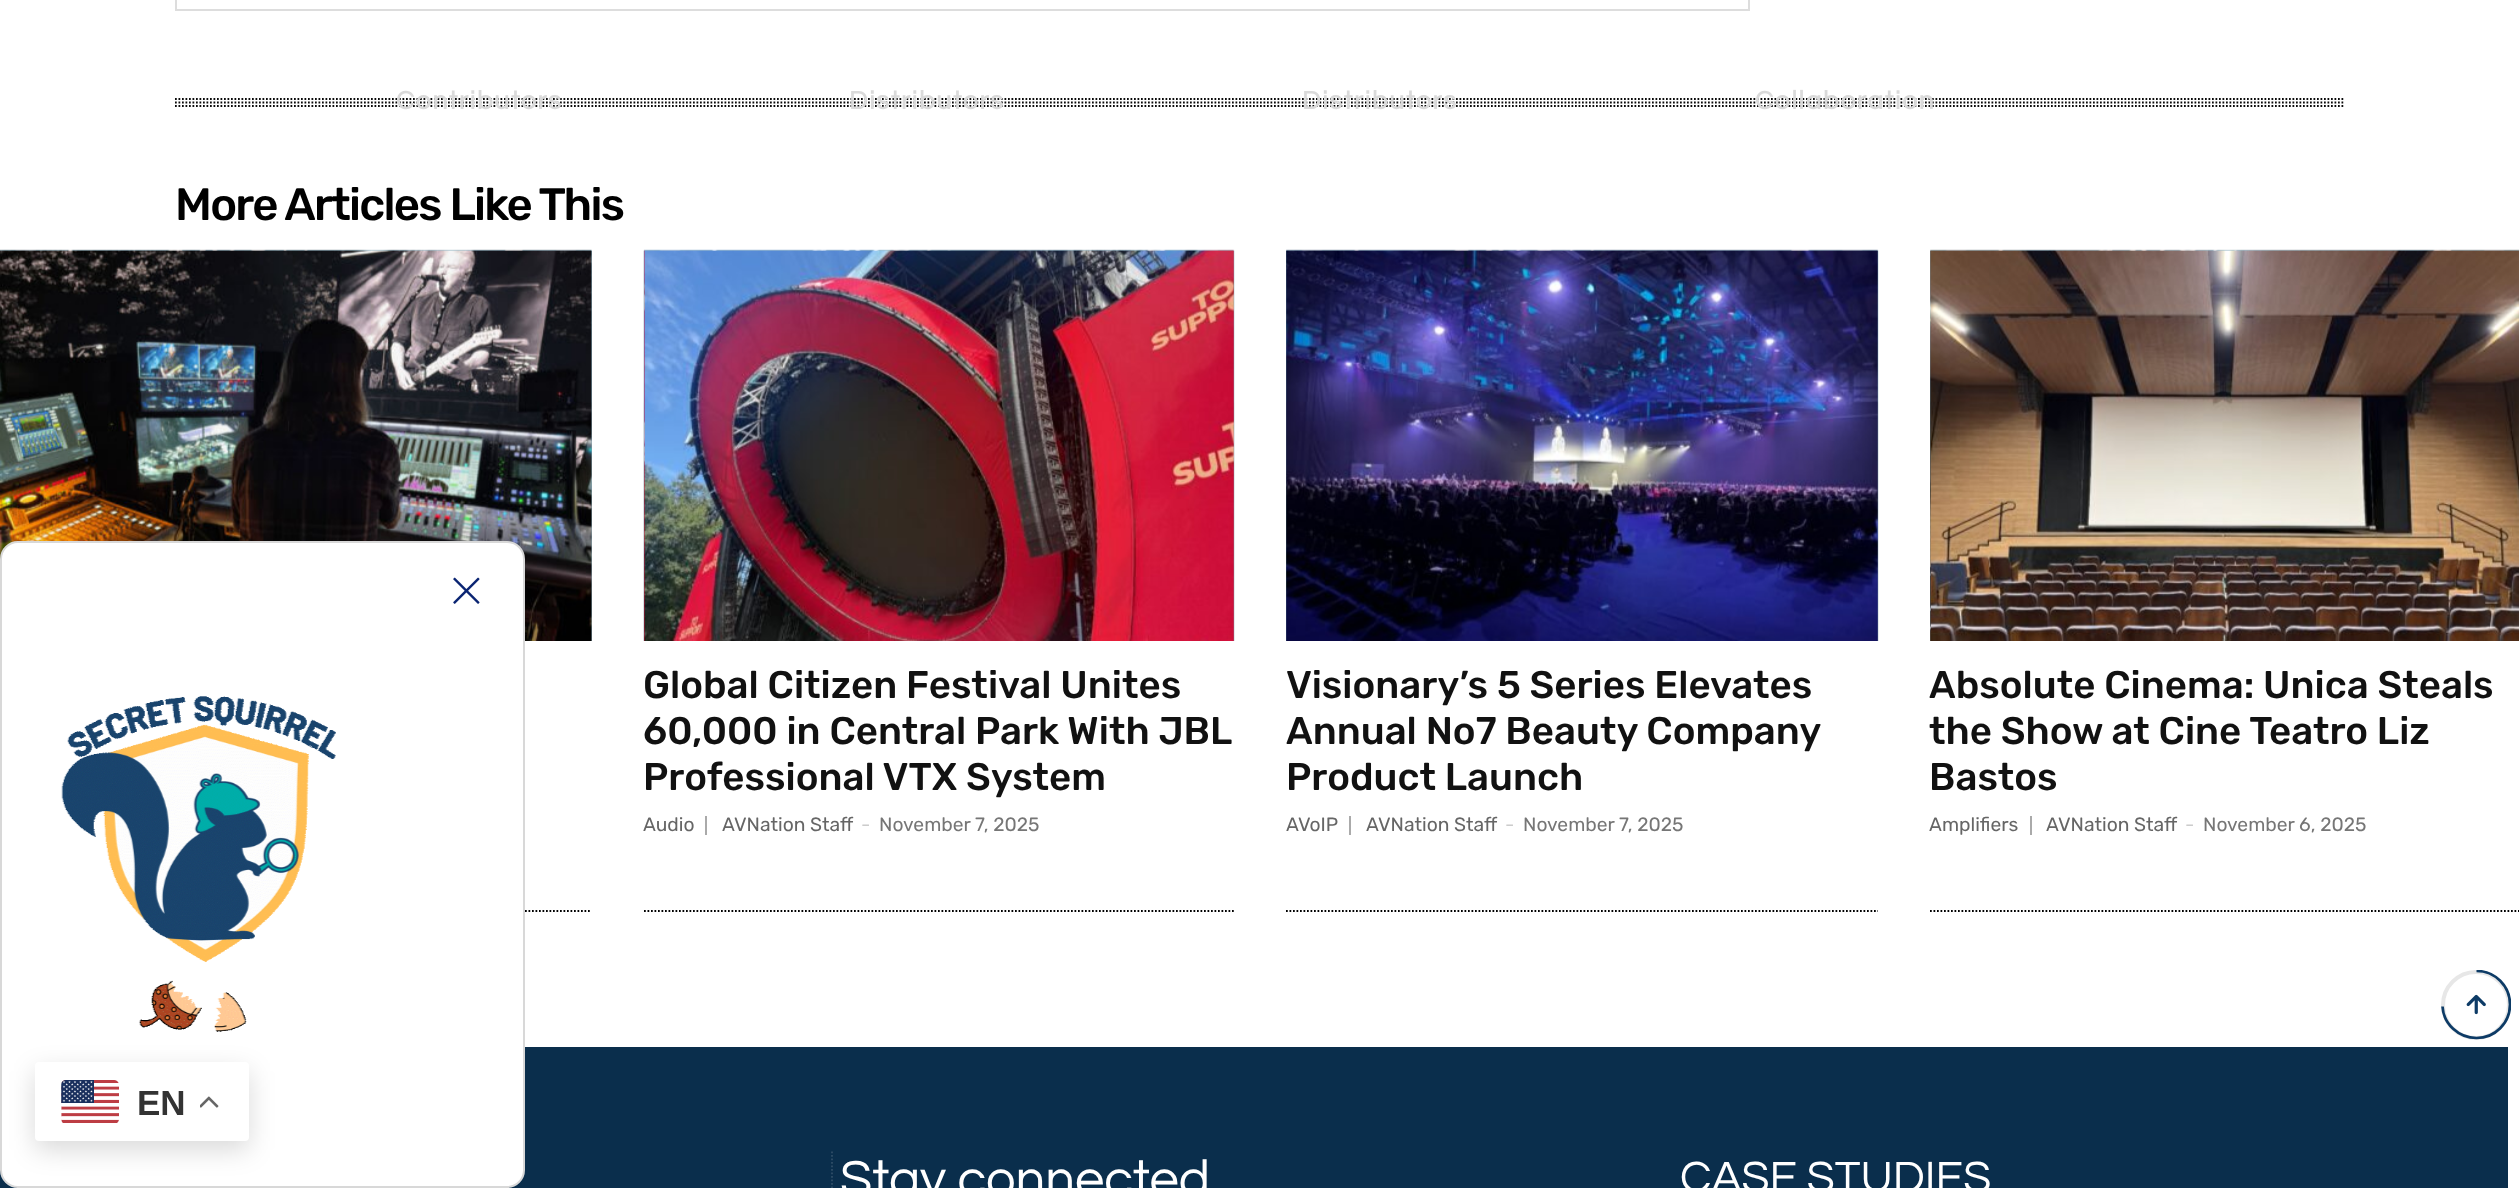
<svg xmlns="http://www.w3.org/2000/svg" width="2519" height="1188">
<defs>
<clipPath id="clip1"><rect x="2441" y="970" width="70" height="70"/></clipPath>
</defs>
<rect width="100%" height="100%" fill="#fff"/>
<path d="M175 99h2170" fill="none" stroke="#0a0a0a" stroke-width="1.8" stroke-dasharray="1.75 1.75"/>
<path d="M175 102.5h2170" fill="none" stroke="#0a0a0a" stroke-width="1.8" stroke-dasharray="1.75 1.75"/>
<path d="M175 106h2170" fill="none" stroke="#0a0a0a" stroke-width="1.8" stroke-dasharray="1.75 1.75"/>
<text x="396" y="109" style="font-family:Questrial;font-size:26.25px;font-weight:bold;letter-spacing:1.75px;fill:#dadada">Contributors</text>
<text x="849" y="109" style="font-family:Questrial;font-size:26.25px;font-weight:bold;letter-spacing:1.75px;fill:#dadada">Distributors</text>
<text x="1302" y="109" style="font-family:Questrial;font-size:26.25px;font-weight:bold;letter-spacing:1.75px;fill:#dadada">Distributors</text>
<text x="1755" y="109" style="font-family:Questrial;font-size:26.25px;font-weight:bold;letter-spacing:1.75px;fill:#dadada">Collaboration</text>
<rect x="176" y="-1" width="1573" height="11" fill="none" stroke="#ddd" stroke-width="2"/>
<text x="175" y="220" style="font-family:Rubik;font-size:45.5px;font-weight:500;letter-spacing:-1.75px;fill:#000">More Articles Like This</text>
<image x="0" y="249" width="592" height="392" href="media/1.png"/>
<image x="0" y="249" width="592" height="392" href="media/2.png"/>
<path d="M0 911h591.5" fill="none" stroke="#000" stroke-width="1.8" stroke-dasharray="1.75 1.75"/>
<image x="643" y="249" width="592" height="392" href="media/3.png"/>
<image x="644" y="249" width="590" height="392" href="media/4.png"/>
<text x="643" y="698" style="font-family:Rubik;font-size:38.5px;font-weight:500;fill:#111">Global Citizen Festival Unites</text>
<text x="643" y="744" style="font-family:Rubik;font-size:38.5px;font-weight:500;fill:#111">60,000 in Central Park With JBL</text>
<text x="643" y="790" style="font-family:Rubik;font-size:38.5px;font-weight:500;fill:#111">Professional VTX System</text>
<rect x="705" y="816" width="2" height="19" fill="#aaa"/>
<text x="643" y="831" style="font-family:Rubik;font-size:19.25px;fill:#666">Audio</text>
<text x="722" y="831" style="font-family:Rubik;font-size:19.25px;fill:#666">AVNation Staff</text>
<text x="861" y="831" style="font-family:Rubik;font-size:19.25px;fill:#ccc">-</text>
<text x="879" y="831" style="font-family:Rubik;font-size:19.25px;fill:#767676">November 7, 2025</text>
<path d="M644 911h590" fill="none" stroke="#000" stroke-width="1.8" stroke-dasharray="1.75 1.75"/>
<image x="1286" y="249" width="593" height="392" href="media/5.png"/>
<image x="1286" y="249" width="592" height="392" href="media/6.png"/>
<text x="1286" y="698" style="font-family:Rubik;font-size:38.5px;font-weight:500;fill:#111">Visionary’s 5 Series Elevates</text>
<text x="1286" y="744" style="font-family:Rubik;font-size:38.5px;font-weight:500;fill:#111">Annual No7 Beauty Company</text>
<text x="1286" y="790" style="font-family:Rubik;font-size:38.5px;font-weight:500;fill:#111">Product Launch</text>
<rect x="1349" y="816" width="2" height="19" fill="#aaa"/>
<text x="1286" y="831" style="font-family:Rubik;font-size:19.25px;fill:#666">AVoIP</text>
<text x="1366" y="831" style="font-family:Rubik;font-size:19.25px;fill:#666">AVNation Staff</text>
<text x="1505" y="831" style="font-family:Rubik;font-size:19.25px;fill:#ccc">-</text>
<text x="1523" y="831" style="font-family:Rubik;font-size:19.25px;fill:#767676">November 7, 2025</text>
<path d="M1286 911h592" fill="none" stroke="#000" stroke-width="1.8" stroke-dasharray="1.75 1.75"/>
<image x="1930" y="249" width="589" height="392" href="media/7.png"/>
<image x="1930" y="249" width="589" height="392" href="media/8.png"/>
<text x="1929" y="698" style="font-family:Rubik;font-size:38.5px;font-weight:500;fill:#111">Absolute Cinema: Unica Steals</text>
<text x="1929" y="744" style="font-family:Rubik;font-size:38.5px;font-weight:500;fill:#111">the Show at Cine Teatro Liz</text>
<text x="1929" y="790" style="font-family:Rubik;font-size:38.5px;font-weight:500;fill:#111">Bastos</text>
<rect x="2030" y="816" width="2" height="19" fill="#aaa"/>
<text x="1929" y="831" style="font-family:Rubik;font-size:19.25px;fill:#666">Amplifiers</text>
<text x="2046" y="831" style="font-family:Rubik;font-size:19.25px;fill:#666">AVNation Staff</text>
<text x="2185" y="831" style="font-family:Rubik;font-size:19.25px;fill:#ccc">-</text>
<text x="2203" y="831" style="font-family:Rubik;font-size:19.25px;fill:#767676">November 6, 2025</text>
<path d="M1930 911h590" fill="none" stroke="#000" stroke-width="1.8" stroke-dasharray="1.75 1.75"/>
<rect y="1047" width="2508" height="141" fill="#0a2e4c"/>
<path d="M832 1151.5v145.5" fill="none" stroke="#2f4d67" stroke-width="1.8" stroke-dasharray="1.75 1.75"/>
<text x="840" y="1196" style="font-family:Questrial;font-size:52.5px;fill:#fff">Stay connected</text>
<text x="1680" y="1192" style="font-family:Questrial;font-size:45.5px;fill:#fff">CASE STUDIES</text>
<rect x="1" y="542" width="523" height="645" rx="17" fill="#fff" stroke="#d8d8d8" stroke-width="2"/>
<image x="453" y="577" width="27" height="27" href="media/9.png"/>
<image x="61" y="696" width="275" height="336" href="media/10.png"/>
<circle cx="2476" cy="1005" r="33" fill="none" stroke="#e7e7e7" stroke-width="4"/>
<g clip-path="url(#clip1)">
<path d="M2476.5 971c18.5 0 33.5 15 33.5 33.5c0 18.5-15 33.5-33.5 33.5c-18 0-33-14-34-31.5" fill="none" stroke="#0d3b66" stroke-width="2.7"/>
</g>
<image x="2466" y="994" width="20" height="21" href="media/11.png"/>
<rect x="35" y="1071" width="214" height="79" rx="4" fill="#00000026" filter="blur(13px)"/>
<rect x="35" y="1062" width="214" height="79" rx="4" fill="#fff"/>
<image x="61" y="1080" width="58" height="43" href="media/12.png"/>
<text x="137" y="1115" style="font-family:Liberation Sans;font-size:35px;font-weight:bold;fill:#333">EN</text>
<image x="200" y="1096" width="19" height="12" href="media/13.png"/>
</svg>
